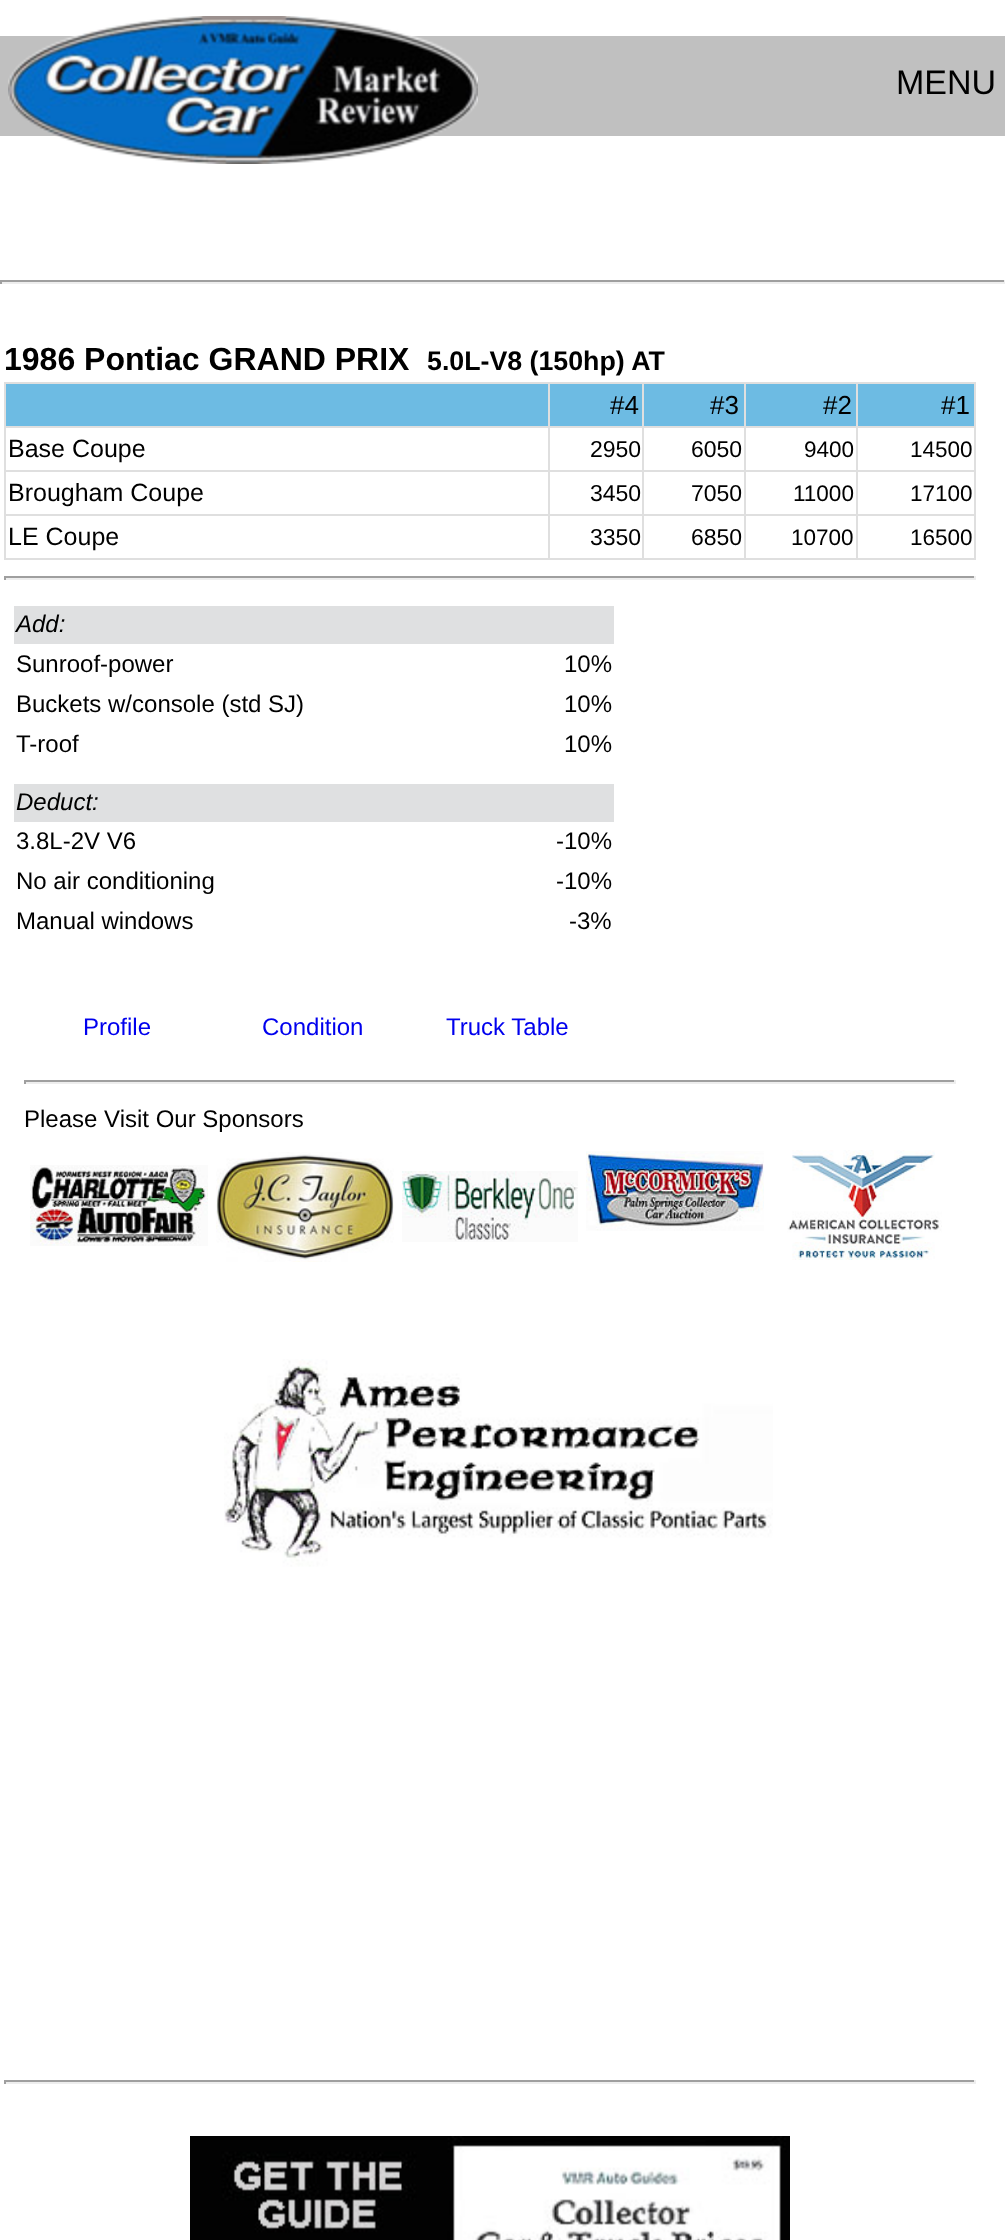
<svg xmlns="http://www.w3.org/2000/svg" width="1005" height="2240">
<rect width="100%" height="100%" fill="#fff"/>
<rect y="36" width="1005" height="100" fill="#c0c0c0"/>
<image x="8" y="16" width="470" height="148" href="media/1.png"/>
<text x="896" y="94" style="font-family:Liberation Sans;font-size:34px;fill:#000">MENU</text>
<rect y="280" width="1005" height="2" fill="#9f9f9f"/>
<rect x="1004" y="280" width="1" height="4" fill="#eee"/>
<rect y="282" width="1005" height="2" fill="#eee"/>
<rect y="280" width="2" height="4" fill="#9f9f9f"/>
<text x="4" y="370" style="font-family:Liberation Sans;font-size:32px;font-weight:bold;fill:#000">1986 Pontiac GRAND PRIX</text>
<text x="427" y="370" style="font-family:Liberation Sans;font-size:26.75px;font-weight:bold;fill:#000">5.0L-V8 (150hp) AT</text>
<rect x="6" y="384" width="542" height="42" fill="#6dbbe3"/>
<rect x="856" y="382" width="120" height="2" fill="#dfdfdf"/>
<rect x="856" y="426" width="120" height="2" fill="#dfdfdf"/>
<rect x="856" y="470" width="120" height="2" fill="#dfdfdf"/>
<rect x="856" y="514" width="120" height="2" fill="#dfdfdf"/>
<rect x="974" y="514" width="2" height="46" fill="#dfdfdf"/>
<rect x="856" y="558" width="120" height="2" fill="#dfdfdf"/>
<rect x="856" y="514" width="2" height="46" fill="#dfdfdf"/>
<rect x="744" y="514" width="114" height="2" fill="#dfdfdf"/>
<rect x="856" y="470" width="2" height="46" fill="#dfdfdf"/>
<rect x="744" y="470" width="114" height="2" fill="#dfdfdf"/>
<rect x="856" y="426" width="2" height="46" fill="#dfdfdf"/>
<rect x="744" y="426" width="114" height="2" fill="#dfdfdf"/>
<rect x="856" y="382" width="2" height="46" fill="#dfdfdf"/>
<rect x="744" y="382" width="114" height="2" fill="#dfdfdf"/>
<rect x="744" y="558" width="114" height="2" fill="#dfdfdf"/>
<rect x="744" y="514" width="2" height="46" fill="#dfdfdf"/>
<rect x="642" y="514" width="104" height="2" fill="#dfdfdf"/>
<rect x="744" y="470" width="2" height="46" fill="#dfdfdf"/>
<rect x="642" y="470" width="104" height="2" fill="#dfdfdf"/>
<rect x="744" y="426" width="2" height="46" fill="#dfdfdf"/>
<rect x="642" y="426" width="104" height="2" fill="#dfdfdf"/>
<rect x="744" y="382" width="2" height="46" fill="#dfdfdf"/>
<rect x="642" y="382" width="104" height="2" fill="#dfdfdf"/>
<rect x="642" y="558" width="104" height="2" fill="#dfdfdf"/>
<rect x="642" y="514" width="2" height="46" fill="#dfdfdf"/>
<rect x="548" y="514" width="96" height="2" fill="#dfdfdf"/>
<rect x="642" y="470" width="2" height="46" fill="#dfdfdf"/>
<rect x="548" y="470" width="96" height="2" fill="#dfdfdf"/>
<rect x="642" y="426" width="2" height="46" fill="#dfdfdf"/>
<rect x="548" y="426" width="96" height="2" fill="#dfdfdf"/>
<rect x="642" y="382" width="2" height="46" fill="#dfdfdf"/>
<rect x="548" y="382" width="96" height="2" fill="#dfdfdf"/>
<rect x="548" y="558" width="96" height="2" fill="#dfdfdf"/>
<rect x="548" y="514" width="2" height="46" fill="#dfdfdf"/>
<rect x="4" y="514" width="546" height="2" fill="#dfdfdf"/>
<rect x="548" y="470" width="2" height="46" fill="#dfdfdf"/>
<rect x="4" y="470" width="546" height="2" fill="#dfdfdf"/>
<rect x="548" y="426" width="2" height="46" fill="#dfdfdf"/>
<rect x="4" y="426" width="546" height="2" fill="#dfdfdf"/>
<rect x="548" y="382" width="2" height="46" fill="#dfdfdf"/>
<rect x="4" y="382" width="546" height="2" fill="#dfdfdf"/>
<rect x="4" y="558" width="546" height="2" fill="#dfdfdf"/>
<rect x="4" y="514" width="2" height="46" fill="#dfdfdf"/>
<rect x="4" y="470" width="2" height="46" fill="#dfdfdf"/>
<rect x="4" y="426" width="2" height="46" fill="#dfdfdf"/>
<rect x="4" y="382" width="2" height="46" fill="#dfdfdf"/>
<rect x="550" y="384" width="92" height="42" fill="#6dbbe3"/>
<text x="610" y="414" style="font-family:Liberation Sans;font-size:26px;fill:#000">#4</text>
<rect x="644" y="384" width="100" height="42" fill="#6dbbe3"/>
<text x="710" y="414" style="font-family:Liberation Sans;font-size:26px;fill:#000">#3</text>
<rect x="746" y="384" width="110" height="42" fill="#6dbbe3"/>
<text x="823" y="414" style="font-family:Liberation Sans;font-size:26px;fill:#000">#2</text>
<rect x="858" y="384" width="116" height="42" fill="#6dbbe3"/>
<rect x="974" y="470" width="2" height="46" fill="#dfdfdf"/>
<rect x="974" y="426" width="2" height="46" fill="#dfdfdf"/>
<rect x="974" y="382" width="2" height="46" fill="#dfdfdf"/>
<text x="941" y="414" style="font-family:Liberation Sans;font-size:26px;fill:#000">#1</text>
<text x="8" y="457" style="font-family:Liberation Sans;font-size:25px;fill:#000">Base Coupe</text>
<text x="590" y="457" style="font-family:Liberation Sans;font-size:23px;fill:#000">2950</text>
<text x="691" y="457" style="font-family:Liberation Sans;font-size:23px;fill:#000">6050</text>
<text x="804" y="457" style="font-family:Liberation Sans;font-size:22.5px;fill:#000">9400</text>
<text x="910" y="457" style="font-family:Liberation Sans;font-size:22.5px;fill:#000">14500</text>
<text x="8" y="501" style="font-family:Liberation Sans;font-size:25px;fill:#000">Brougham Coupe</text>
<text x="590" y="501" style="font-family:Liberation Sans;font-size:23px;fill:#000">3450</text>
<text x="691" y="501" style="font-family:Liberation Sans;font-size:23px;fill:#000">7050</text>
<text x="793" y="501" style="font-family:Liberation Sans;font-size:22.5px;fill:#000">11000</text>
<text x="910" y="501" style="font-family:Liberation Sans;font-size:22.5px;fill:#000">17100</text>
<text x="8" y="545" style="font-family:Liberation Sans;font-size:25px;fill:#000">LE Coupe</text>
<text x="590" y="545" style="font-family:Liberation Sans;font-size:23px;fill:#000">3350</text>
<text x="691" y="545" style="font-family:Liberation Sans;font-size:23px;fill:#000">6850</text>
<text x="791" y="545" style="font-family:Liberation Sans;font-size:22.5px;fill:#000">10700</text>
<text x="910" y="545" style="font-family:Liberation Sans;font-size:22.5px;fill:#000">16500</text>
<rect x="4" y="576" width="972" height="2" fill="#9f9f9f"/>
<rect x="974" y="576" width="2" height="4" fill="#eee"/>
<rect x="4" y="578" width="972" height="2" fill="#eee"/>
<rect x="4" y="576" width="2" height="4" fill="#9f9f9f"/>
<rect x="14" y="606" width="600" height="38" fill="#dfe0e1"/>
<text x="16" y="632" style="font-family:Liberation Sans;font-size:24px;font-style:italic;fill:#000">Add:</text>
<text x="16" y="672" style="font-family:Liberation Sans;font-size:24px;fill:#000">Sunroof-power</text>
<text x="564" y="672" style="font-family:Liberation Sans;font-size:24px;fill:#000">10%</text>
<text x="16" y="712" style="font-family:Liberation Sans;font-size:24px;fill:#000">Buckets w/console (std SJ)</text>
<text x="564" y="712" style="font-family:Liberation Sans;font-size:24px;fill:#000">10%</text>
<text x="16" y="752" style="font-family:Liberation Sans;font-size:24px;fill:#000">T-roof</text>
<text x="564" y="752" style="font-family:Liberation Sans;font-size:24px;fill:#000">10%</text>
<rect x="14" y="784" width="600" height="38" fill="#dfe0e1"/>
<text x="16" y="810" style="font-family:Liberation Sans;font-size:24px;font-style:italic;fill:#000">Deduct:</text>
<text x="16" y="849" style="font-family:Liberation Sans;font-size:24px;fill:#000">3.8L-2V V6</text>
<text x="556" y="849" style="font-family:Liberation Sans;font-size:24px;fill:#000">-10%</text>
<text x="16" y="889" style="font-family:Liberation Sans;font-size:24px;fill:#000">No air conditioning</text>
<text x="556" y="889" style="font-family:Liberation Sans;font-size:24px;fill:#000">-10%</text>
<text x="16" y="929" style="font-family:Liberation Sans;font-size:24px;fill:#000">Manual windows</text>
<text x="569" y="929" style="font-family:Liberation Sans;font-size:24px;fill:#000">-3%</text>
<text x="83" y="1035" style="font-family:Liberation Sans;font-size:24px;fill:#00e">Profile</text>
<text x="262" y="1035" style="font-family:Liberation Sans;font-size:24px;fill:#00e">Condition</text>
<text x="446" y="1035" style="font-family:Liberation Sans;font-size:24px;fill:#00e">Truck Table</text>
<rect x="24" y="1080" width="932" height="2" fill="#9f9f9f"/>
<rect x="954" y="1080" width="2" height="4" fill="#eee"/>
<rect x="24" y="1082" width="932" height="2" fill="#eee"/>
<rect x="24" y="1080" width="2" height="4" fill="#9f9f9f"/>
<text x="24" y="1127" style="font-family:Liberation Sans;font-size:24px;fill:#000">Please Visit Our Sponsors</text>
<image x="30" y="1165" width="178" height="81" href="media/2.png"/>
<image x="216" y="1152" width="178" height="110" href="media/3.png"/>
<image x="402" y="1171" width="176" height="71" href="media/4.png"/>
<image x="586" y="1151" width="178" height="80" href="media/5.png"/>
<image x="787" y="1150" width="155" height="110" href="media/6.png"/>
<image x="224" y="1359" width="549" height="208" href="media/7.png"/>
<rect x="4" y="2080" width="972" height="2" fill="#9f9f9f"/>
<rect x="974" y="2080" width="2" height="4" fill="#eee"/>
<rect x="4" y="2082" width="972" height="2" fill="#eee"/>
<rect x="4" y="2080" width="2" height="4" fill="#9f9f9f"/>
<image x="190" y="2136" width="600" height="104" href="media/8.png"/>
</svg>
